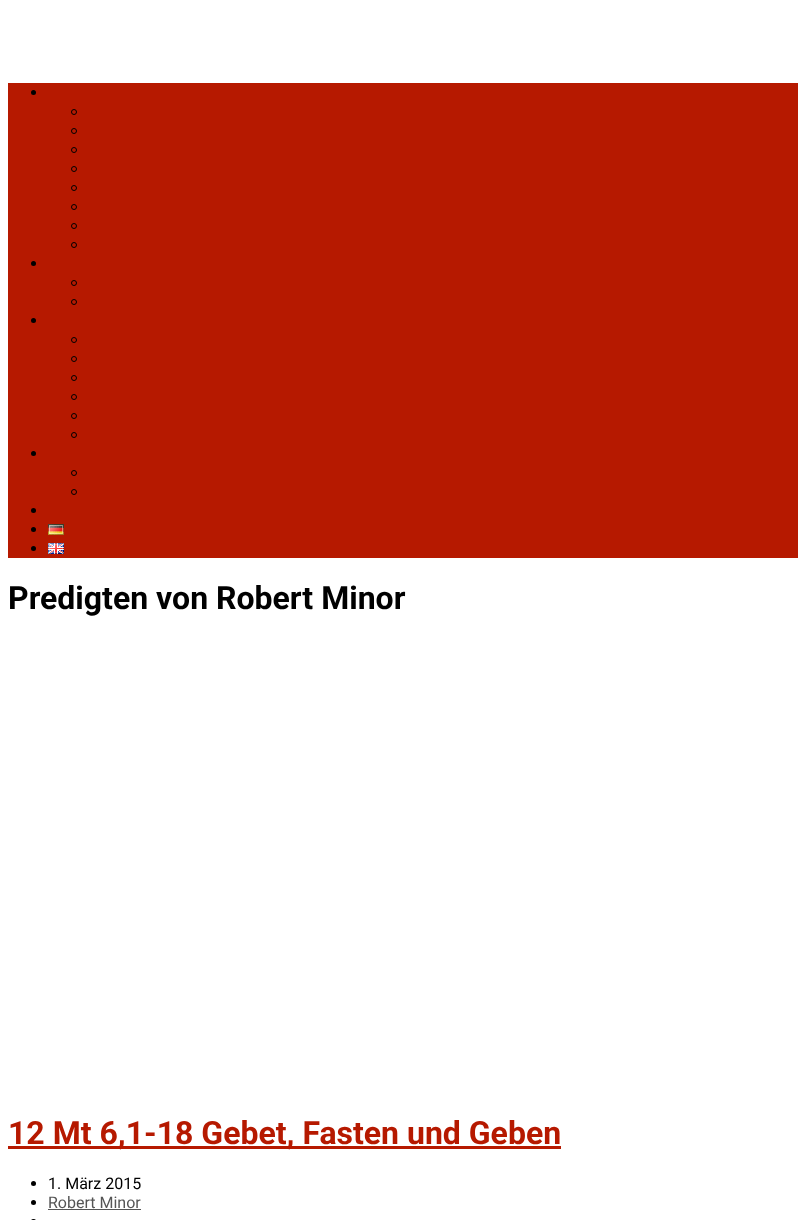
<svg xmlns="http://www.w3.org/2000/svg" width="806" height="1220">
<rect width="100%" height="100%" fill="#fff"/>
<rect x="8" y="83" width="790" height="475" fill="#b61900"/>
<circle cx="33.5" cy="92.5" r="2.5" fill="#000"/>
<circle cx="74" cy="112" r="2.5" fill="none" stroke="#000"/>
<circle cx="74" cy="131" r="2.5" fill="none" stroke="#000"/>
<circle cx="74" cy="150" r="2.5" fill="none" stroke="#000"/>
<circle cx="74" cy="169" r="2.5" fill="none" stroke="#000"/>
<circle cx="74" cy="188" r="2.5" fill="none" stroke="#000"/>
<circle cx="74" cy="207" r="2.5" fill="none" stroke="#000"/>
<circle cx="74" cy="226" r="2.5" fill="none" stroke="#000"/>
<circle cx="74" cy="245" r="2.5" fill="none" stroke="#000"/>
<circle cx="33.5" cy="263.5" r="2.5" fill="#000"/>
<circle cx="74" cy="283" r="2.5" fill="none" stroke="#000"/>
<circle cx="74" cy="302" r="2.5" fill="none" stroke="#000"/>
<circle cx="33.5" cy="320.5" r="2.5" fill="#000"/>
<circle cx="74" cy="340" r="2.5" fill="none" stroke="#000"/>
<circle cx="74" cy="359" r="2.5" fill="none" stroke="#000"/>
<circle cx="74" cy="378" r="2.5" fill="none" stroke="#000"/>
<circle cx="74" cy="397" r="2.5" fill="none" stroke="#000"/>
<circle cx="74" cy="416" r="2.5" fill="none" stroke="#000"/>
<circle cx="74" cy="435" r="2.5" fill="none" stroke="#000"/>
<circle cx="33.5" cy="453.5" r="2.5" fill="#000"/>
<circle cx="74" cy="473" r="2.5" fill="none" stroke="#000"/>
<circle cx="74" cy="492" r="2.5" fill="none" stroke="#000"/>
<circle cx="33.5" cy="510.5" r="2.5" fill="#000"/>
<circle cx="33.5" cy="529.5" r="2.5" fill="#000"/>
<image x="48" y="524" width="16" height="11" href="media/1.png"/>
<circle cx="33.5" cy="548.5" r="2.5" fill="#000"/>
<image x="48" y="543" width="16" height="11" href="media/2.png"/>
<text x="8" y="609" style="font-family:Roboto;font-size:32px;font-weight:bold;fill:#000">Predigten von Robert Minor</text>
<rect x="8" y="1146" width="553" height="3" fill="#b61900"/>
<text x="8" y="1144" style="font-family:Roboto;font-size:32px;font-weight:bold;fill:#b61900">12 Mt 6,1-18 Gebet, Fasten und Geben</text>
<circle cx="33.5" cy="1183.5" r="2.5" fill="#000"/>
<text x="48" y="1189" style="font-family:Roboto;font-size:16px;fill:#000">1. März 2015</text>
<circle cx="33.5" cy="1202.5" r="2.5" fill="#000"/>
<text x="48" y="1208" style="font-family:Roboto;font-size:16px;fill:#555">Robert Minor</text>
<rect x="48" y="1209" width="93" height="1" fill="#555"/>
<rect x="31" y="1219" width="5" height="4" rx="2.5" fill="#000"/>
</svg>
